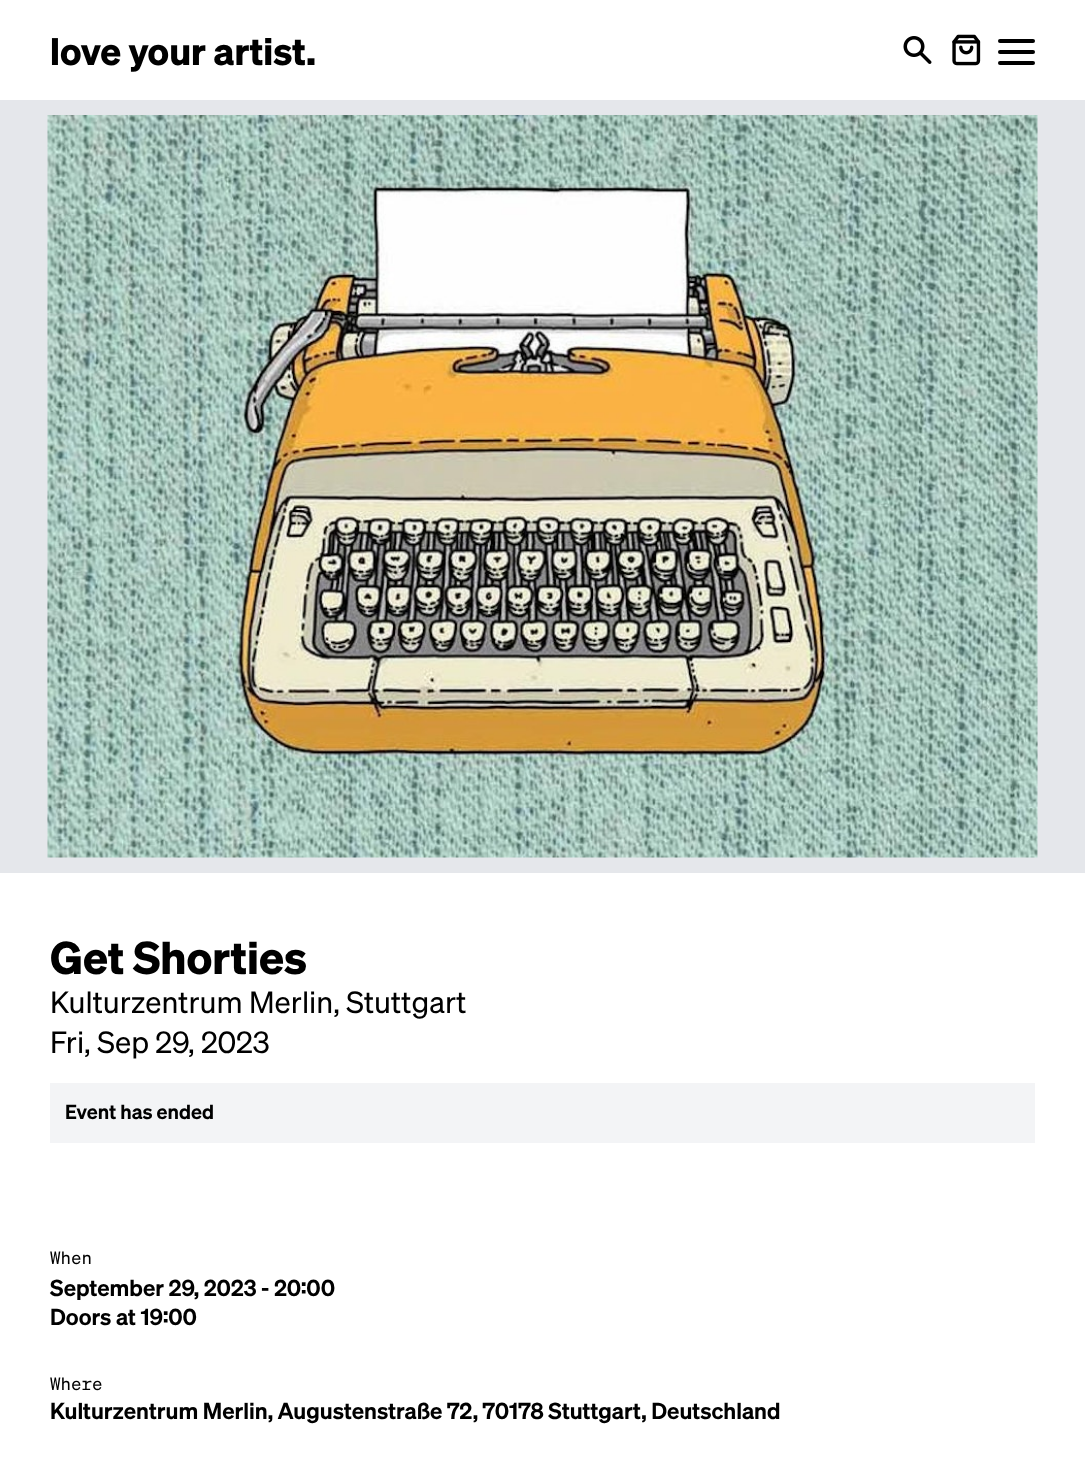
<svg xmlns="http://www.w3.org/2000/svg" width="1085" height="1483">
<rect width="100%" height="100%" fill="#fff"/>
<text x="50" y="65" style="font-family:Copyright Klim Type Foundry;font-size:37.5px;font-weight:bold;fill:#000">love your artist.</text>
<image x="903" y="36" width="29" height="28" href="media/1.png"/>
<image x="952" y="34" width="29" height="32" href="media/2.png"/>
<rect x="998" y="50" width="37" height="4" rx="2" fill="#000"/>
<rect x="998" y="39" width="37" height="4" rx="2" fill="#000"/>
<rect x="998" y="61" width="37" height="4" rx="2" fill="#000"/>
<rect y="100" width="1085" height="773" fill="#e5e7eb"/>
<image x="47" y="115" width="991" height="743" href="media/3.png"/>
<text x="50" y="974" style="font-family:Copyright Klim Type Foundry;font-size:45px;font-weight:bold;fill:#000">Get Shorties</text>
<text x="50" y="1013" style="font-family:'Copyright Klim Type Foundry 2';font-size:30px;fill:#000">Kulturzentrum Merlin, Stuttgart</text>
<text x="50" y="1053" style="font-family:'Copyright Klim Type Foundry 2';font-size:30px;fill:#000">Fri, Sep 29, 2023</text>
<rect x="50" y="1083" width="985" height="60" fill="#f3f4f6"/>
<text x="65" y="1119" style="font-family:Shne;font-size:20px;font-weight:600;fill:#000">Event has ended</text>
<text x="50" y="1264" style="font-family:Copyright Klim Type Foundry;font-size:17.5px;fill:#000">When</text>
<text x="50" y="1296" style="font-family:Shne;font-size:22.5px;font-weight:600;fill:#000">September 29, 2023 - 20:00</text>
<text x="50" y="1325" style="font-family:Shne;font-size:22.5px;font-weight:600;fill:#000">Doors at 19:00</text>
<text x="50" y="1390" style="font-family:Copyright Klim Type Foundry;font-size:17.5px;fill:#000">Where</text>
<text x="50" y="1419" style="font-family:Shne;font-size:22.5px;font-weight:600;fill:#000">Kulturzentrum Merlin, Augustenstraße 72, 70178 Stuttgart, Deutschland</text>
</svg>
